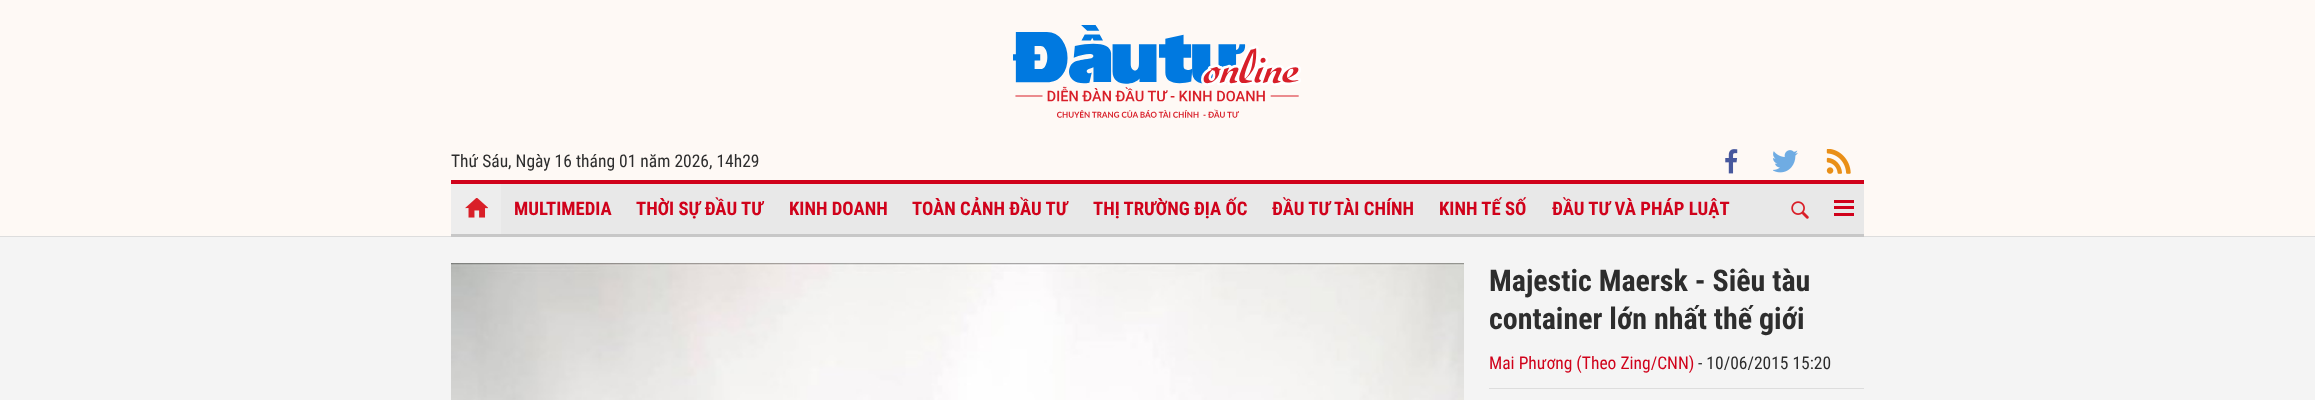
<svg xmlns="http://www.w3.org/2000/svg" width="2315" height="400">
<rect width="100%" height="100%" fill="#fef9f5"/>
<image x="1013" y="25" width="288" height="93" href="media/1.png"/>
<text x="451" y="167" style="font-family:Roboto Condensed;font-size:17.5px;fill:#2d2d2d">Thứ Sáu, Ngày 16 tháng 01 năm 2026, 14h29</text>
<image x="1725" y="149" width="13" height="25" href="media/2.png"/>
<image x="1773" y="150" width="25" height="23" href="media/3.png"/>
<image x="1826" y="149" width="25" height="25" href="media/4.png"/>
<rect x="501" y="184" width="1363" height="50" fill="#e8e8e8"/>
<rect x="451" y="180" width="1413" height="4" fill="#d0021b"/>
<rect y="236" width="2315" height="1" fill="#ddd"/>
<rect x="451" y="234" width="1413" height="3" fill="#c7c7c7"/>
<rect x="451" y="184" width="50" height="50" fill="#ededed"/>
<image x="465" y="198" width="23" height="20" href="media/5.png"/>
<text x="514" y="215" style="font-family:Roboto Condensed;font-size:18.75px;font-weight:bold;fill:#d0021b">MULTIMEDIA</text>
<text x="636" y="215" style="font-family:Roboto Condensed;font-size:18.75px;font-weight:bold;fill:#d0021b">THỜI SỰ ĐẦU TƯ</text>
<text x="789" y="215" style="font-family:Roboto Condensed;font-size:18.75px;font-weight:bold;fill:#d0021b">KINH DOANH</text>
<text x="912" y="215" style="font-family:Roboto Condensed;font-size:18.75px;font-weight:bold;fill:#d0021b">TOÀN CẢNH ĐẦU TƯ</text>
<text x="1093" y="215" style="font-family:Roboto Condensed;font-size:18.75px;font-weight:bold;fill:#d0021b">THỊ TRƯỜNG ĐỊA ỐC</text>
<text x="1272" y="215" style="font-family:Roboto Condensed;font-size:18.75px;font-weight:bold;fill:#d0021b">ĐẦU TƯ TÀI CHÍNH</text>
<text x="1439" y="215" style="font-family:Roboto Condensed;font-size:18.75px;font-weight:bold;fill:#d0021b">KINH TẾ SỐ</text>
<text x="1552" y="215" style="font-family:Roboto Condensed;font-size:18.75px;font-weight:bold;fill:#d0021b">ĐẦU TƯ VÀ PHÁP LUẬT</text>
<image x="1791" y="201" width="18" height="18" href="media/6.png"/>
<rect x="1834" y="200" width="20" height="3" fill="#d0021b"/>
<rect x="1834" y="206" width="20" height="3" fill="#d0021b"/>
<rect x="1834" y="213" width="20" height="3" fill="#d0021b"/>
<rect y="237" width="2315" height="163" fill="#f4f4f4"/>
<image x="451" y="263" width="1013" height="137" href="media/7.png"/>
<text x="1489" y="291" style="font-family:Roboto Condensed;font-size:30px;font-weight:bold;fill:#2d2d2d">Majestic Maersk - Siêu tàu</text>
<text x="1489" y="329" style="font-family:Roboto Condensed;font-size:30px;font-weight:bold;fill:#2d2d2d">container lớn nhất thế giới</text>
<text x="1489" y="369" style="font-family:Roboto Condensed;font-size:17.5px;fill:#d0021b">Mai Phương (Theo Zing/CNN)</text>
<text x="1698" y="369" style="font-family:Roboto Condensed;font-size:17.5px;fill:#2d2d2d">- 10/06/2015 15:20</text>
<rect x="1489" y="388" width="375" height="1" fill="#ddd"/>
</svg>
